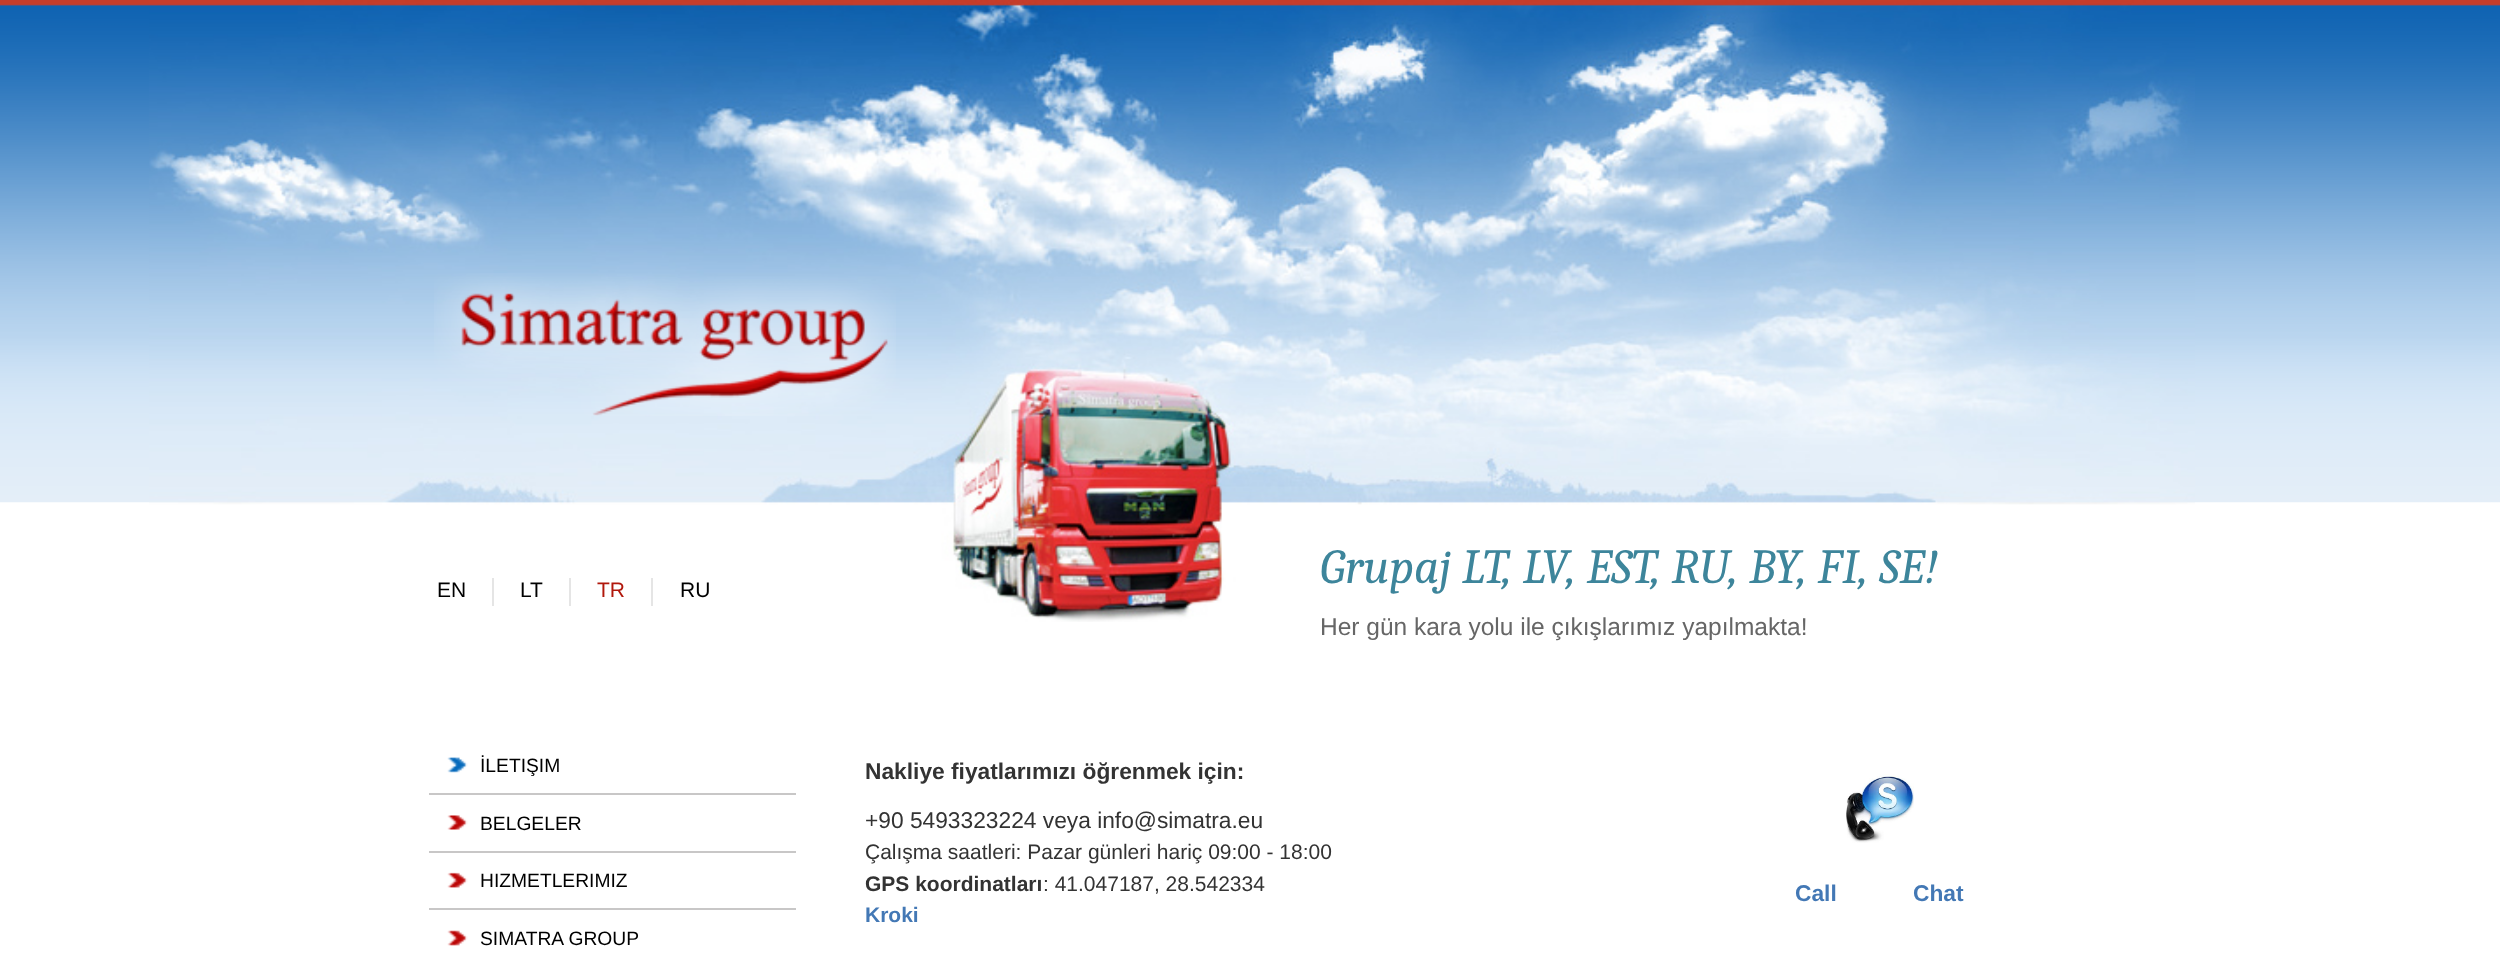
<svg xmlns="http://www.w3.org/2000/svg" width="2500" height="955">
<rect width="100%" height="100%" fill="#fff"/>
<image x="0" y="0" width="2500" height="503" href="media/1.png"/>
<image x="149" y="0" width="2046" height="622" href="media/2.png"/>
<image x="434" y="273" width="462" height="143" href="media/3.png"/>
<rect x="492" y="578" width="2" height="28" fill="#e5e5e5"/>
<text x="437" y="597" style="font-family:Liberation Sans;font-size:21px;fill:#000">EN</text>
<rect x="569" y="578" width="2" height="28" fill="#e5e5e5"/>
<text x="520" y="597" style="font-family:Liberation Sans;font-size:21px;fill:#000">LT</text>
<rect x="651" y="578" width="2" height="28" fill="#e5e5e5"/>
<text x="597" y="597" style="font-family:Liberation Sans;font-size:21px;fill:#b1180c">TR</text>
<text x="680" y="597" style="font-family:Liberation Sans;font-size:21px;fill:#000">RU</text>
<text x="1320" y="583" style="font-family:Caladea;font-size:49px;font-style:italic;fill:#3d859b">Grupaj LT, LV, EST, RU, BY, FI, SE!</text>
<text x="1320" y="635" style="font-family:Liberation Sans;font-size:24.5px;fill:#666">Her gün kara yolu ile çıkışlarımız yapılmakta!</text>
<rect x="429" y="793" width="367" height="2" fill="#c8c7c7"/>
<image x="447" y="757" width="21" height="16" href="media/4.png"/>
<text x="480" y="772" style="font-family:Liberation Sans;font-size:19.25px;fill:#000">İLETIŞIM</text>
<rect x="429" y="851" width="367" height="2" fill="#c8c7c7"/>
<image x="447" y="815" width="21" height="15" href="media/5.png"/>
<text x="480" y="830" style="font-family:Liberation Sans;font-size:19.25px;fill:#000">BELGELER</text>
<rect x="429" y="908" width="367" height="2" fill="#c8c7c7"/>
<image x="447" y="872" width="21" height="16" href="media/6.png"/>
<text x="480" y="887" style="font-family:Liberation Sans;font-size:19.25px;fill:#000">HIZMETLERIMIZ</text>
<image x="447" y="930" width="21" height="16" href="media/7.png"/>
<text x="480" y="945" style="font-family:Liberation Sans;font-size:19.25px;fill:#000">SIMATRA GROUP</text>
<text x="865" y="779" style="font-family:Liberation Sans;font-size:22.75px;font-weight:bold;fill:#333">Nakliye fiyatlarımızı öğrenmek için:</text>
<text x="865" y="828" style="font-family:Liberation Sans;font-size:22.75px;fill:#333">+90 5493323224 veya info@simatra.eu</text>
<text x="865" y="859" style="font-family:Liberation Sans;font-size:21px;fill:#333">Çalışma saatleri: Pazar günleri hariç 09:00 - 18:00</text>
<text x="865" y="891" style="font-family:Liberation Sans;font-size:21px;font-weight:bold;fill:#333">GPS koordinatları</text>
<text x="1043" y="891" style="font-family:Liberation Sans;font-size:21px;fill:#333">: 41.047187, 28.542334</text>
<text x="865" y="922" style="font-family:Liberation Sans;font-size:21px;font-weight:bold;fill:#4378b5">Kroki</text>
<image x="1846" y="774" width="68" height="69" href="media/8.png"/>
<text x="1795" y="901" style="font-family:Liberation Sans;font-size:22.75px;font-weight:bold;fill:#4378b5">Call</text>
<text x="1913" y="901" style="font-family:Liberation Sans;font-size:22.75px;font-weight:bold;fill:#4378b5">Chat</text>
</svg>
